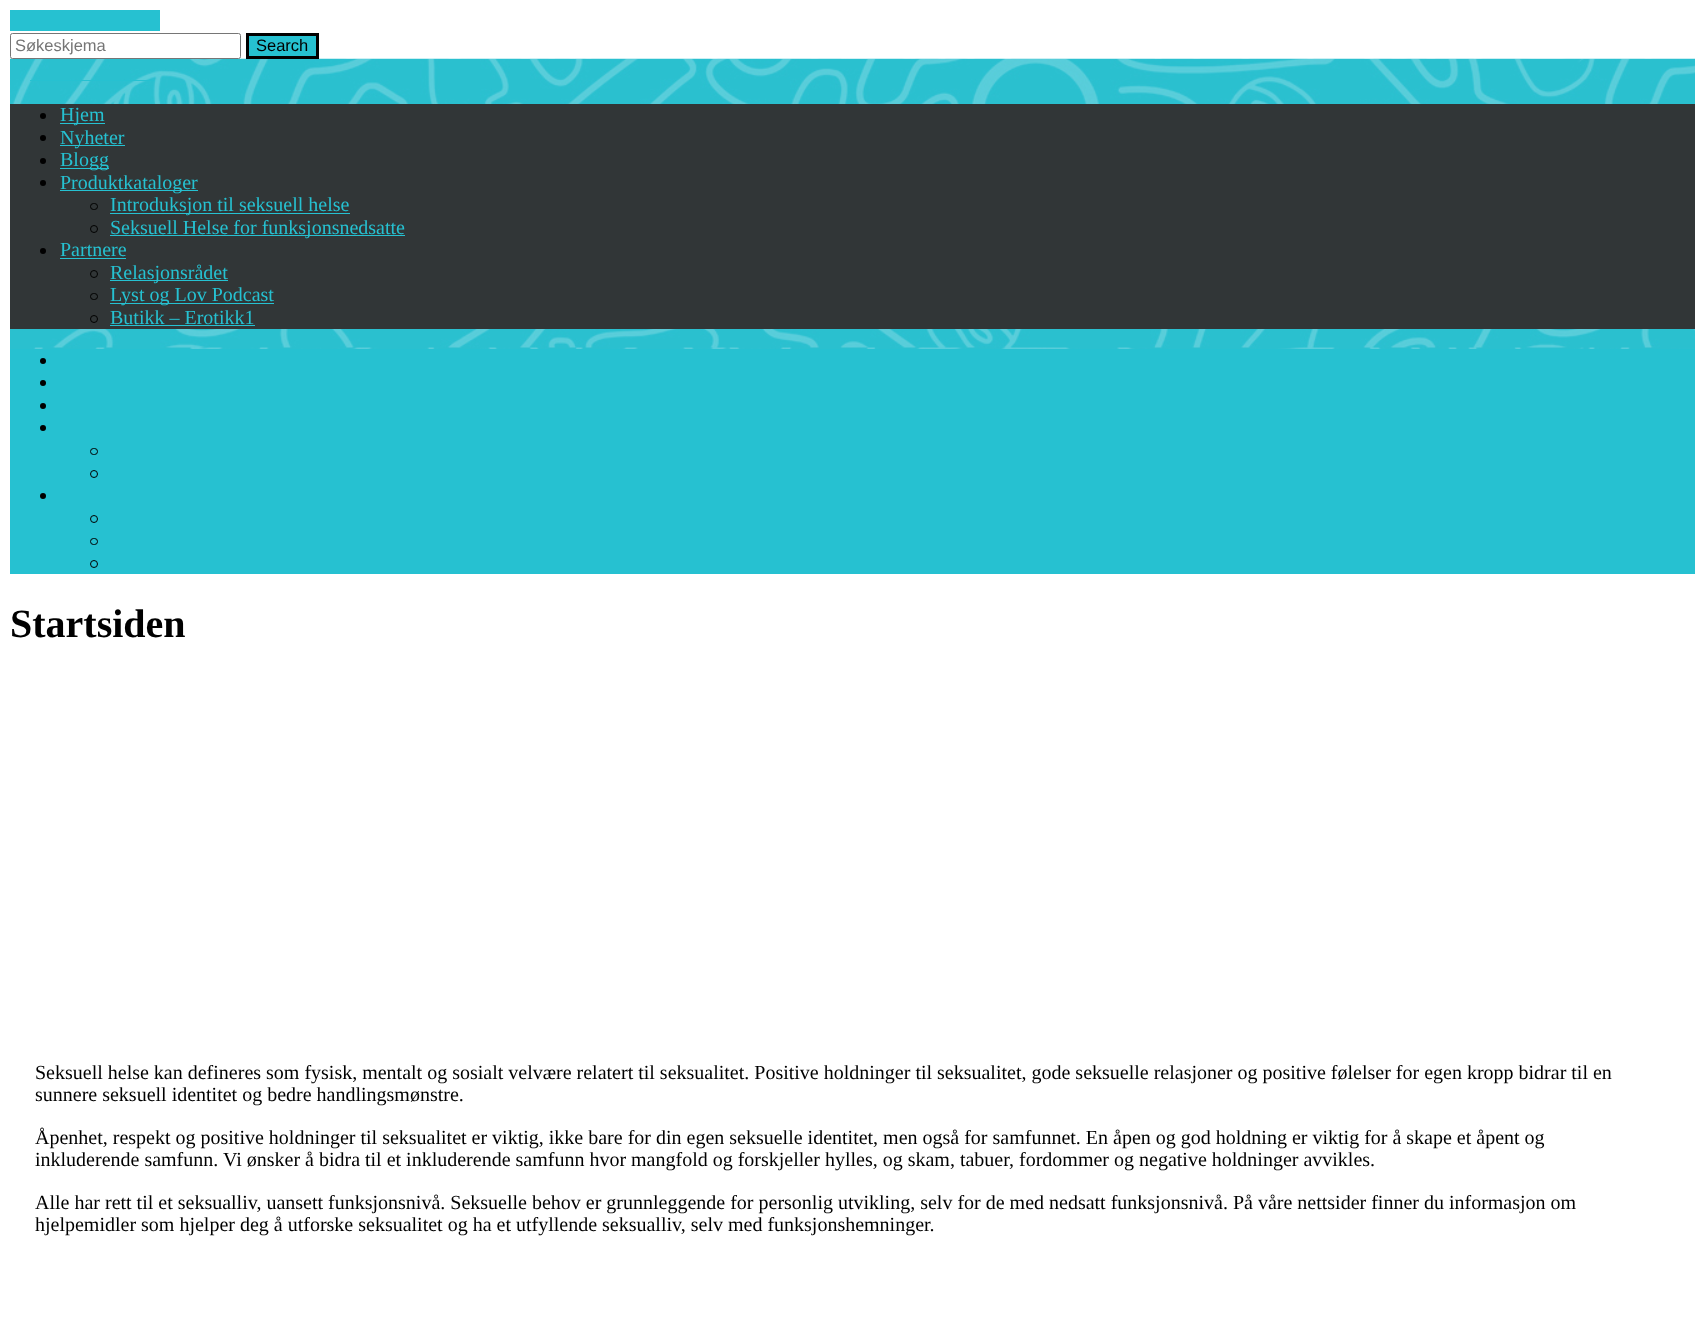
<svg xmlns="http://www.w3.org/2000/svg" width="1705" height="1333">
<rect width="100%" height="100%" fill="#fff"/>
<rect x="10" y="10" width="150" height="21" fill="#26c1d1"/>
<image x="10" y="58" width="1685" height="291" href="media/1.png"/>
<rect x="10.5" y="33.5" width="230" height="25" rx="2" fill="#fff" stroke="#767676"/>
<text x="15" y="51" style="font-family:Liberation Sans;font-size:16.5px;fill:#757575">Søkeskjema</text>
<rect x="247.5" y="34.5" width="70" height="23" fill="#26c1d1" stroke="#000" stroke-width="3"/>
<text x="256" y="51" style="font-family:Liberation Sans;font-size:16.5px;fill:#000">Search</text>
<rect x="30" y="80" width="124" height="1" fill="#26c1d1"/>
<rect x="10" y="104" width="1685" height="225" fill="#313637"/>
<circle cx="43" cy="116" r="3" fill="#000"/>
<rect x="60" y="123" width="45" height="1" fill="#26c1d1"/>
<text x="60" y="121" style="font-family:Liberation Serif;font-size:20px;fill:#26c1d1">Hjem</text>
<circle cx="43" cy="138" r="3" fill="#000"/>
<rect x="60" y="145" width="65" height="1" fill="#26c1d1"/>
<text x="60" y="144" style="font-family:Liberation Serif;font-size:20px;fill:#26c1d1">Nyheter</text>
<circle cx="43" cy="161" r="3" fill="#000"/>
<rect x="60" y="168" width="49" height="1" fill="#26c1d1"/>
<text x="60" y="166" style="font-family:Liberation Serif;font-size:20px;fill:#26c1d1">Blogg</text>
<circle cx="43" cy="183" r="3" fill="#000"/>
<rect x="60" y="190" width="138" height="1" fill="#26c1d1"/>
<text x="60" y="189" style="font-family:Liberation Serif;font-size:20px;fill:#26c1d1">Produktkataloger</text>
<rect x="90.5" y="203.5" width="7" height="6" rx="3" fill="none" stroke="#000"/>
<rect x="110" y="213" width="240" height="1" fill="#26c1d1"/>
<text x="110" y="211" style="font-family:Liberation Serif;font-size:20px;fill:#26c1d1">Introduksjon til seksuell helse</text>
<circle cx="94" cy="229" r="3.5" fill="none" stroke="#000"/>
<rect x="110" y="235" width="295" height="1" fill="#26c1d1"/>
<text x="110" y="234" style="font-family:Liberation Serif;font-size:20px;fill:#26c1d1">Seksuell Helse for funksjonsnedsatte</text>
<circle cx="43" cy="251" r="3" fill="#000"/>
<text x="60" y="256" style="font-family:Liberation Serif;font-size:20px;fill:#26c1d1">Partnere</text>
<rect x="60" y="258" width="66" height="1" fill="#26c1d1"/>
<circle cx="94" cy="274" r="3.5" fill="none" stroke="#000"/>
<rect x="110" y="280" width="118" height="1" fill="#26c1d1"/>
<text x="110" y="279" style="font-family:Liberation Serif;font-size:20px;fill:#26c1d1">Relasjonsrådet</text>
<rect x="90.5" y="293.5" width="7" height="6" rx="3" fill="none" stroke="#000"/>
<rect x="110" y="303" width="164" height="1" fill="#26c1d1"/>
<text x="110" y="301" style="font-family:Liberation Serif;font-size:20px;fill:#26c1d1">Lyst og Lov Podcast</text>
<circle cx="94" cy="319" r="3.5" fill="none" stroke="#000"/>
<text x="110" y="324" style="font-family:Liberation Serif;font-size:20px;fill:#26c1d1">Butikk – Erotikk1</text>
<rect x="110" y="325" width="145" height="1" fill="#26c1d1"/>
<rect x="10" y="349" width="1685" height="225" fill="#26c1d1"/>
<circle cx="43" cy="361" r="3" fill="#000"/>
<circle cx="43" cy="383" r="3" fill="#000"/>
<circle cx="43" cy="406" r="3" fill="#000"/>
<circle cx="43" cy="428" r="3" fill="#000"/>
<rect x="90.5" y="448.5" width="7" height="6" rx="3" fill="none" stroke="#000"/>
<circle cx="94" cy="474" r="3.5" fill="none" stroke="#000"/>
<circle cx="43" cy="496" r="3" fill="#000"/>
<circle cx="94" cy="519" r="3.5" fill="none" stroke="#000"/>
<rect x="90.5" y="538.5" width="7" height="6" rx="3" fill="none" stroke="#000"/>
<circle cx="94" cy="564" r="3.5" fill="none" stroke="#000"/>
<text x="10" y="637" style="font-family:Liberation Serif;font-size:40px;font-weight:bold;fill:#000">Startsiden</text>
<text x="35" y="1079" style="font-family:Liberation Serif;font-size:20px;fill:#000">Seksuell helse kan defineres som fysisk, mentalt og sosialt velvære relatert til seksualitet. Positive holdninger til seksualitet, gode seksuelle relasjoner og positive følelser for egen kropp bidrar til en</text>
<text x="35" y="1101" style="font-family:Liberation Serif;font-size:20px;fill:#000">sunnere seksuell identitet og bedre handlingsmønstre.</text>
<text x="35" y="1144" style="font-family:Liberation Serif;font-size:20px;fill:#000">Åpenhet, respekt og positive holdninger til seksualitet er viktig, ikke bare for din egen seksuelle identitet, men også for samfunnet. En åpen og god holdning er viktig for å skape et åpent og</text>
<text x="35" y="1166" style="font-family:Liberation Serif;font-size:20px;fill:#000">inkluderende samfunn. Vi ønsker å bidra til et inkluderende samfunn hvor mangfold og forskjeller hylles, og skam, tabuer, fordommer og negative holdninger avvikles.</text>
<text x="35" y="1209" style="font-family:Liberation Serif;font-size:20px;fill:#000">Alle har rett til et seksualliv, uansett funksjonsnivå. Seksuelle behov er grunnleggende for personlig utvikling, selv for de med nedsatt funksjonsnivå. På våre nettsider finner du informasjon om</text>
<text x="35" y="1231" style="font-family:Liberation Serif;font-size:20px;fill:#000">hjelpemidler som hjelper deg å utforske seksualitet og ha et utfyllende seksualliv, selv med funksjonshemninger.</text>
</svg>
